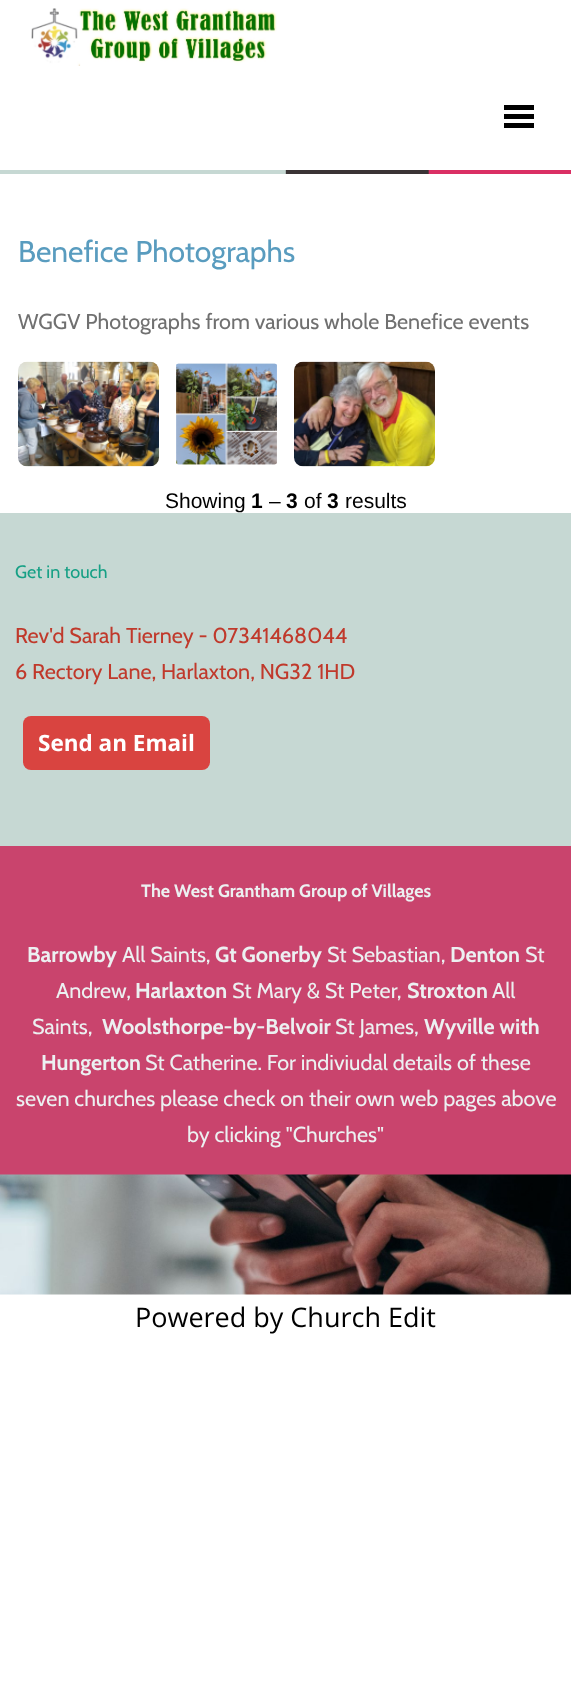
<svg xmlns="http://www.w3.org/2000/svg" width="571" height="1690">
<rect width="100%" height="100%" fill="#fff"/>
<image x="31" y="8" width="246" height="58" href="media/1.png"/>
<rect x="504" y="105" width="30" height="5" fill="#000"/>
<rect x="504" y="114" width="30" height="5" fill="#000"/>
<rect x="504" y="123" width="30" height="5" fill="#000"/>
<image x="0" y="170" width="571" height="4" href="media/2.png"/>
<text x="18" y="262" style="font-family:Cabin;font-size:30px;fill:#599cbf">Benefice Photographs</text>
<text x="18" y="329" style="font-family:Cabin;font-size:21.6px;fill:#707070">WGGV Photographs from various whole Benefice events</text>
<image x="18" y="361" width="141" height="106" href="media/3.png"/>
<image x="176" y="363" width="101" height="102" href="media/4.png"/>
<image x="294" y="361" width="141" height="106" href="media/5.png"/>
<text x="165" y="508" style="font-family:Liberation Sans;font-size:21px;fill:#000">Showing</text>
<text x="251" y="508" style="font-family:Liberation Sans;font-size:21px;font-weight:bold;fill:#000">1</text>
<text x="269" y="508" style="font-family:Liberation Sans;font-size:21px;fill:#000">–</text>
<text x="286" y="508" style="font-family:Liberation Sans;font-size:21px;font-weight:bold;fill:#000">3</text>
<text x="304" y="508" style="font-family:Liberation Sans;font-size:21px;fill:#000">of</text>
<text x="327" y="508" style="font-family:Liberation Sans;font-size:21px;font-weight:bold;fill:#000">3</text>
<text x="345" y="508" style="font-family:Liberation Sans;font-size:21px;fill:#000">results</text>
<rect y="513" width="571" height="333" fill="#c6d8d3"/>
<text x="15" y="578" style="font-family:Cabin;font-size:18px;fill:#16a085">Get in touch</text>
<text x="15" y="643" style="font-family:Cabin;font-size:21.6px;fill:#c0392b">Rev'd Sarah Tierney - 07341468044</text>
<text x="15" y="679" style="font-family:Cabin;font-size:21.6px;fill:#c0392b">6 Rectory Lane, Harlaxton, NG32 1HD</text>
<rect x="23" y="716" width="187" height="54" rx="8" fill="#d94440"/>
<text x="38" y="751" style="font-family:Open Sans;font-size:22.5px;font-weight:bold;fill:#fff">Send an Email</text>
<rect y="846" width="571" height="329" fill="#c9446d"/>
<text x="141" y="897" style="font-family:Cabin;font-size:18px;font-weight:bold;fill:#ecf0f1">The West Grantham Group of Villages</text>
<text x="27" y="962" style="font-family:Cabin;font-size:21.6px;font-weight:bold;fill:#ecf0f1">Barrowby</text>
<text x="122" y="962" style="font-family:Cabin;font-size:21.6px;fill:#ecf0f1">All Saints,</text>
<text x="215" y="962" style="font-family:Cabin;font-size:21.6px;font-weight:bold;fill:#ecf0f1">Gt Gonerby</text>
<text x="327" y="962" style="font-family:Cabin;font-size:21.6px;fill:#ecf0f1">St Sebastian,</text>
<text x="450" y="962" style="font-family:Cabin;font-size:21.6px;font-weight:bold;fill:#ecf0f1">Denton</text>
<text x="525" y="962" style="font-family:Cabin;font-size:21.6px;fill:#ecf0f1">St</text>
<text x="56" y="998" style="font-family:Cabin;font-size:21.6px;fill:#ecf0f1">Andrew,</text>
<text x="135" y="998" style="font-family:Cabin;font-size:21.6px;font-weight:bold;fill:#ecf0f1">Harlaxton</text>
<text x="232" y="998" style="font-family:Cabin;font-size:21.6px;fill:#ecf0f1">St Mary &amp; St Peter,</text>
<text x="407" y="998" style="font-family:Cabin;font-size:21.6px;font-weight:bold;fill:#ecf0f1">Stroxton</text>
<text x="492" y="998" style="font-family:Cabin;font-size:21.6px;fill:#ecf0f1">All</text>
<text x="32" y="1034" style="font-family:Cabin;font-size:21.6px;fill:#ecf0f1">Saints,</text>
<text x="102" y="1034" style="font-family:Cabin;font-size:21.6px;font-weight:bold;fill:#ecf0f1">Woolsthorpe-by-Belvoir</text>
<text x="335" y="1034" style="font-family:Cabin;font-size:21.6px;fill:#ecf0f1">St James,</text>
<text x="424" y="1034" style="font-family:Cabin;font-size:21.6px;font-weight:bold;fill:#ecf0f1">Wyville with</text>
<text x="41" y="1070" style="font-family:Cabin;font-size:21.6px;font-weight:bold;fill:#ecf0f1">Hungerton</text>
<text x="145" y="1070" style="font-family:Cabin;font-size:21.6px;fill:#ecf0f1">St Catherine. For indiviudal details of these</text>
<text x="16" y="1106" style="font-family:Cabin;font-size:21.6px;fill:#ecf0f1">seven churches please check on their own web pages above</text>
<text x="187" y="1142" style="font-family:Cabin;font-size:21.6px;fill:#ecf0f1">by clicking "Churches"</text>
<image x="0" y="1174" width="571" height="121" href="media/6.png"/>
<text x="135" y="1327" style="font-family:Open Sans;font-size:27px;fill:#000">Powered by Church Edit</text>
</svg>
